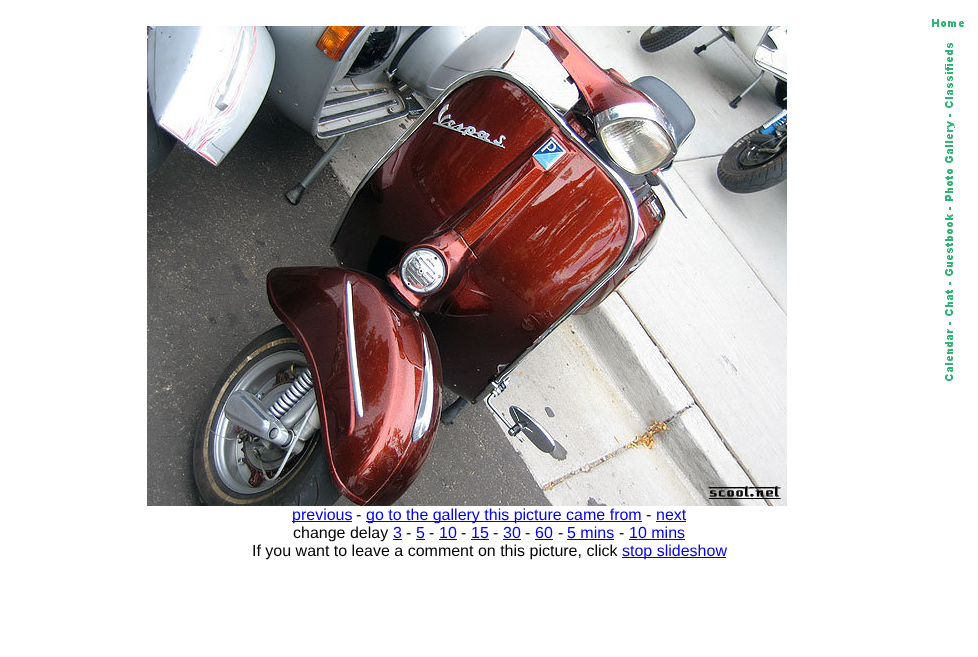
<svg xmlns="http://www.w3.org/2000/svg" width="978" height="657">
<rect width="100%" height="100%" fill="#fff"/>
<image x="932" y="19" width="32" height="8" href="media/1.png"/>
<image x="945" y="43" width="10" height="338" href="media/2.png"/>
<image x="147" y="26" width="640" height="480" href="media/3.png"/>
<rect x="292" y="521" width="60" height="1" fill="#00e"/>
<text x="292" y="520" style="font-family:Liberation Sans;font-size:16px;fill:#00e">previous</text>
<text x="356" y="520" style="font-family:Liberation Sans;font-size:16px;fill:#000">-</text>
<rect x="366" y="521" width="276" height="1" fill="#00e"/>
<text x="366" y="520" style="font-family:Liberation Sans;font-size:16px;fill:#00e">go to the gallery this picture came from</text>
<text x="646" y="520" style="font-family:Liberation Sans;font-size:16px;fill:#000">-</text>
<text x="656" y="520" style="font-family:Liberation Sans;font-size:16px;fill:#00e">next</text>
<rect x="656" y="521" width="30" height="1" fill="#00e"/>
<text x="293" y="538" style="font-family:Liberation Sans;font-size:16px;fill:#000">change delay</text>
<text x="393" y="538" style="font-family:Liberation Sans;font-size:16px;fill:#00e">3</text>
<rect x="393" y="539" width="9" height="1" fill="#00e"/>
<text x="406" y="538" style="font-family:Liberation Sans;font-size:16px;fill:#000">-</text>
<text x="416" y="538" style="font-family:Liberation Sans;font-size:16px;fill:#00e">5</text>
<rect x="416" y="539" width="9" height="1" fill="#00e"/>
<text x="429" y="538" style="font-family:Liberation Sans;font-size:16px;fill:#000">-</text>
<text x="439" y="538" style="font-family:Liberation Sans;font-size:16px;fill:#00e">10</text>
<rect x="439" y="539" width="18" height="1" fill="#00e"/>
<text x="461" y="538" style="font-family:Liberation Sans;font-size:16px;fill:#000">-</text>
<text x="471" y="538" style="font-family:Liberation Sans;font-size:16px;fill:#00e">15</text>
<rect x="471" y="539" width="18" height="1" fill="#00e"/>
<text x="493" y="538" style="font-family:Liberation Sans;font-size:16px;fill:#000">-</text>
<text x="503" y="538" style="font-family:Liberation Sans;font-size:16px;fill:#00e">30</text>
<rect x="503" y="539" width="18" height="1" fill="#00e"/>
<text x="525" y="538" style="font-family:Liberation Sans;font-size:16px;fill:#000">-</text>
<text x="535" y="538" style="font-family:Liberation Sans;font-size:16px;fill:#00e">60</text>
<rect x="535" y="539" width="18" height="1" fill="#00e"/>
<text x="558" y="538" style="font-family:Liberation Sans;font-size:16px;fill:#000">-</text>
<text x="567" y="538" style="font-family:Liberation Sans;font-size:16px;fill:#00e">5 mins</text>
<rect x="567" y="539" width="47" height="1" fill="#00e"/>
<text x="619" y="538" style="font-family:Liberation Sans;font-size:16px;fill:#000">-</text>
<text x="629" y="538" style="font-family:Liberation Sans;font-size:16px;fill:#00e">10 mins</text>
<rect x="629" y="539" width="56" height="1" fill="#00e"/>
<text x="252" y="556" style="font-family:Liberation Sans;font-size:16px;fill:#000">If you want to leave a comment on this picture, click</text>
<rect x="622" y="557" width="104" height="1" fill="#00e"/>
<text x="622" y="556" style="font-family:Liberation Sans;font-size:16px;fill:#00e">stop slideshow</text>
</svg>
